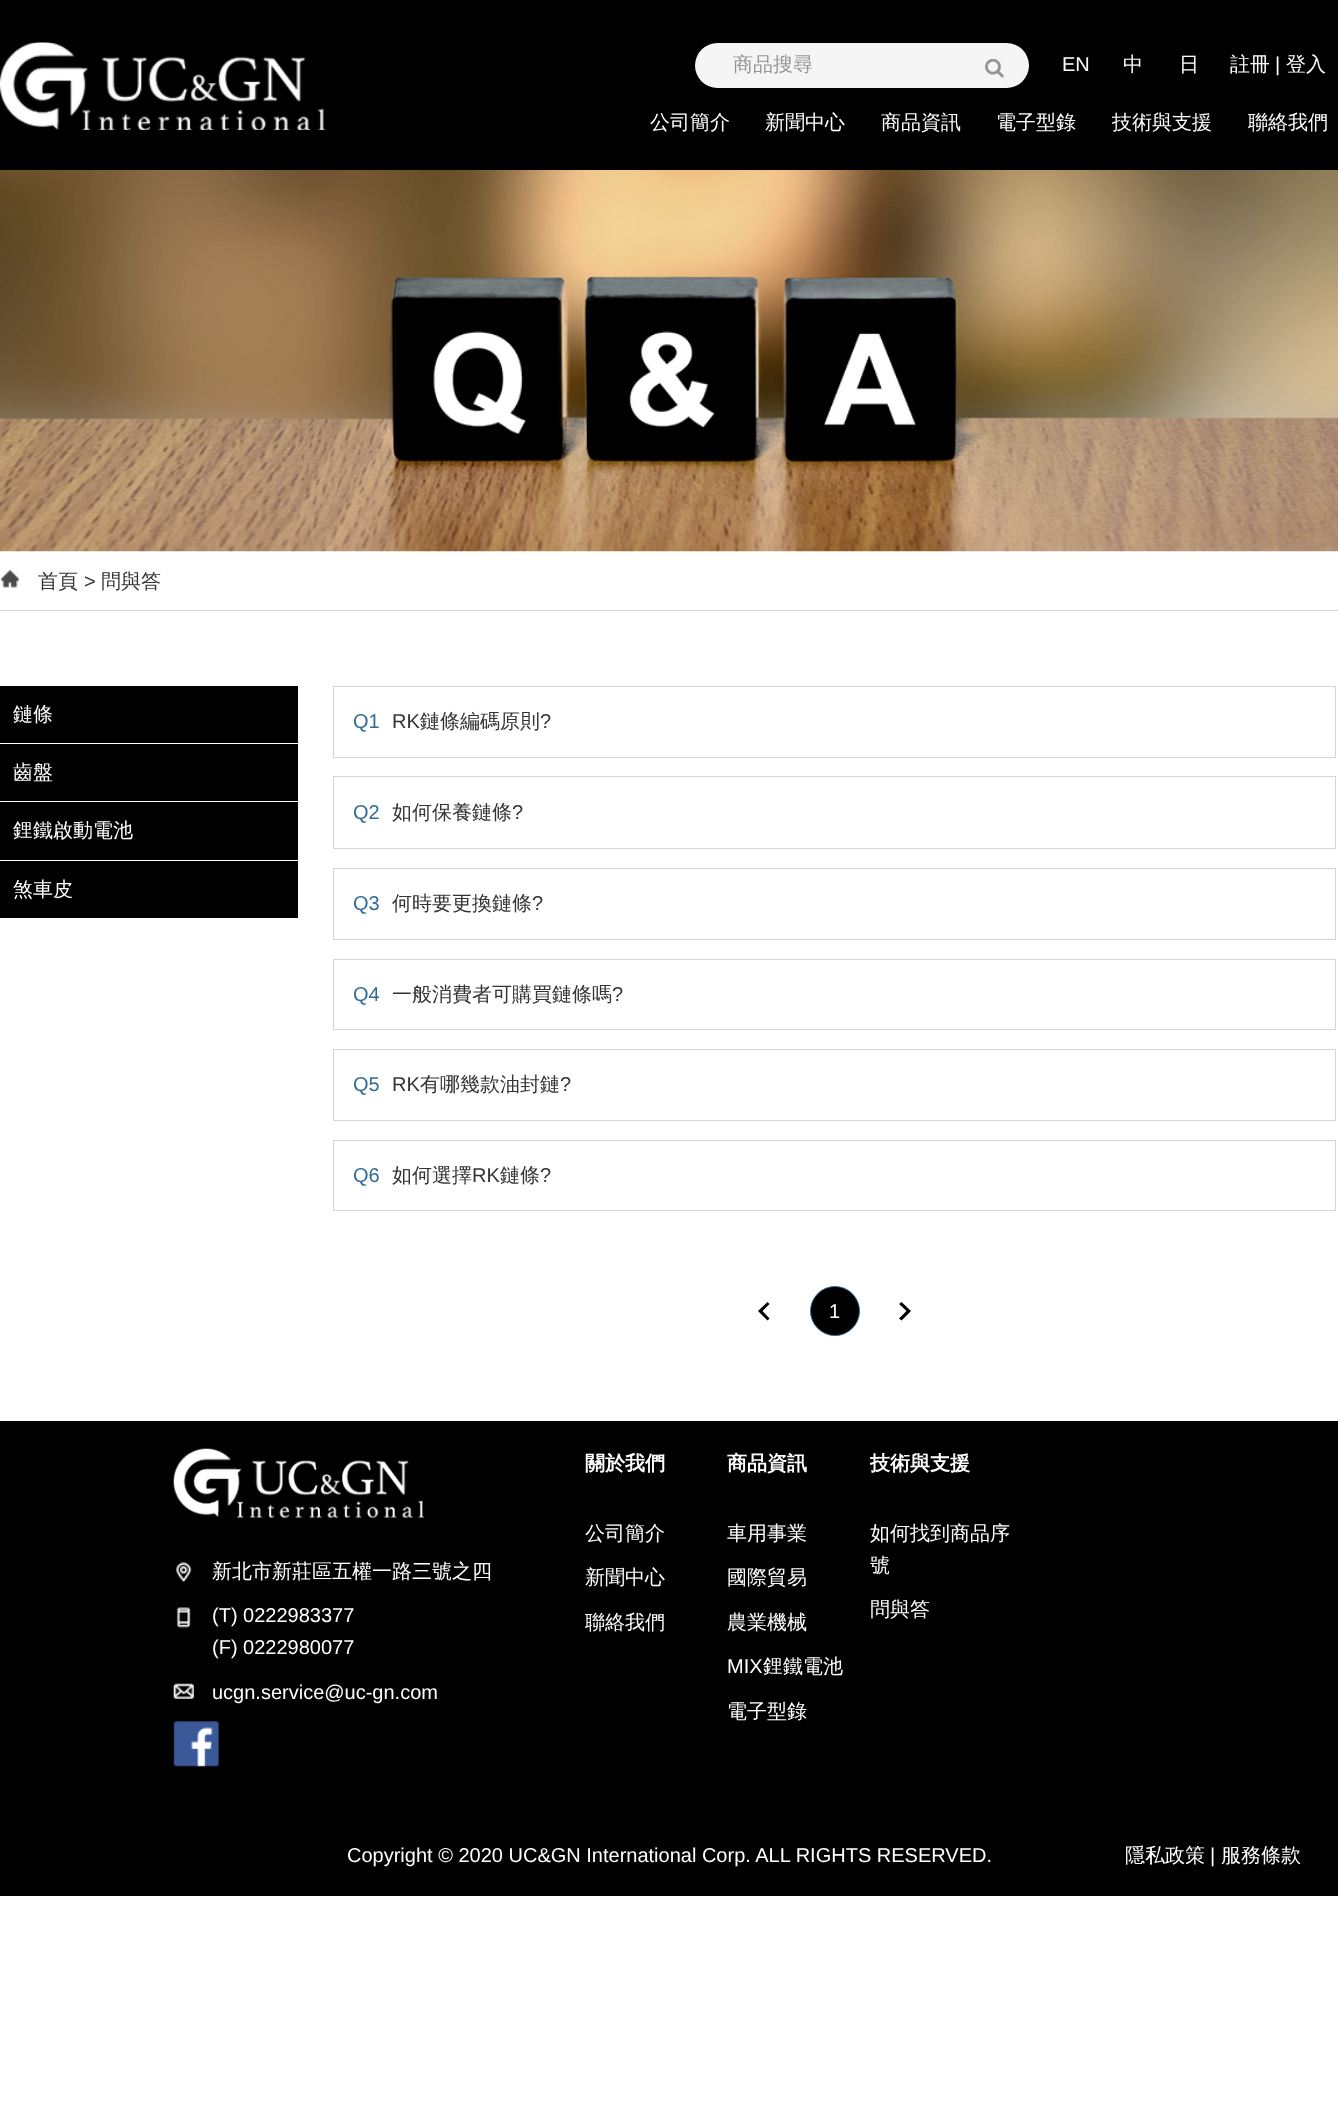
<svg xmlns="http://www.w3.org/2000/svg" width="1338" height="2118">
<rect width="100%" height="100%" fill="#fff"/>
<rect width="1338" height="170" fill="#000"/>
<image x="0" y="42" width="325" height="88" href="media/1.png"/>
<rect x="695" y="43" width="334" height="45" rx="22.5" fill="#f5f5f5"/>
<text x="733" y="71" style="font-family:WenQuanYi Zen Hei;font-size:20px;font-weight:500;fill:#959595">商品搜尋</text>
<image x="985" y="59" width="19" height="19" href="media/2.png"/>
<text x="1062" y="71" style="font-family:Liberation Sans;font-size:20px;fill:#fff">EN</text>
<text x="1123" y="71" style="font-family:WenQuanYi Zen Hei;font-size:20px;font-weight:500;fill:#fff">中</text>
<text x="1179" y="71" style="font-family:WenQuanYi Zen Hei;font-size:20px;font-weight:500;fill:#fff">日</text>
<text x="1230" y="71" style="font-family:WenQuanYi Zen Hei;font-size:20px;font-weight:500;fill:#fff">註冊</text>
<text x="1275" y="71" style="font-family:Liberation Sans;font-size:20px;fill:#fff">|</text>
<text x="1286" y="71" style="font-family:WenQuanYi Zen Hei;font-size:20px;font-weight:500;fill:#fff">登入</text>
<text x="650" y="129" style="font-family:WenQuanYi Zen Hei;font-size:20px;font-weight:500;fill:#fff">公司簡介</text>
<text x="765" y="129" style="font-family:WenQuanYi Zen Hei;font-size:20px;font-weight:500;fill:#fff">新聞中心</text>
<text x="881" y="129" style="font-family:WenQuanYi Zen Hei;font-size:20px;font-weight:500;fill:#fff">商品資訊</text>
<text x="996" y="129" style="font-family:WenQuanYi Zen Hei;font-size:20px;font-weight:500;fill:#fff">電子型錄</text>
<text x="1112" y="129" style="font-family:WenQuanYi Zen Hei;font-size:20px;font-weight:500;fill:#fff">技術與支援</text>
<text x="1248" y="129" style="font-family:WenQuanYi Zen Hei;font-size:20px;font-weight:500;fill:#fff">聯絡我們</text>
<image x="0" y="170" width="1338" height="382" href="media/3.png"/>
<rect y="610" width="1338" height="1" fill="#d5d5d5"/>
<image x="0" y="570" width="19" height="18" href="media/4.png"/>
<text x="38" y="588" style="font-family:WenQuanYi Zen Hei;font-size:20px;font-weight:500;fill:#333">首頁</text>
<text x="84" y="588" style="font-family:Liberation Sans;font-size:20px;fill:#333">&gt;</text>
<text x="101" y="588" style="font-family:WenQuanYi Zen Hei;font-size:20px;font-weight:500;fill:#333">問與答</text>
<rect y="686" width="298" height="57" fill="#000"/>
<text x="13" y="721" style="font-family:WenQuanYi Zen Hei;font-size:20px;font-weight:500;fill:#fff">鏈條</text>
<rect y="744" width="298" height="116" fill="#000"/>
<rect y="801" width="298" height="1" fill="#fff"/>
<text x="13" y="779" style="font-family:WenQuanYi Zen Hei;font-size:20px;font-weight:500;fill:#fff">齒盤</text>
<text x="13" y="837" style="font-family:WenQuanYi Zen Hei;font-size:20px;font-weight:500;fill:#fff">鋰鐵啟動電池</text>
<rect y="861" width="298" height="57" fill="#000"/>
<text x="13" y="896" style="font-family:WenQuanYi Zen Hei;font-size:20px;font-weight:500;fill:#fff">煞車皮</text>
<rect x="333.5" y="686.5" width="1002" height="71" fill="none" stroke="#d5d5d5"/>
<text x="353" y="728" style="font-family:Liberation Sans;font-size:20px;fill:#326c95">Q1</text>
<text x="392" y="728" style="font-family:Liberation Sans;font-size:20px;fill:#333">RK</text>
<text x="420" y="728" style="font-family:WenQuanYi Zen Hei;font-size:20px;font-weight:500;fill:#333">鏈條編碼原則</text>
<text x="540" y="728" style="font-family:Liberation Sans;font-size:20px;fill:#333">?</text>
<rect x="333.5" y="776.5" width="1002" height="72" fill="none" stroke="#d5d5d5"/>
<text x="353" y="819" style="font-family:Liberation Sans;font-size:20px;fill:#326c95">Q2</text>
<text x="392" y="819" style="font-family:WenQuanYi Zen Hei;font-size:20px;font-weight:500;fill:#333">如何保養鏈條</text>
<text x="512" y="819" style="font-family:Liberation Sans;font-size:20px;fill:#333">?</text>
<rect x="333.5" y="868.5" width="1002" height="71" fill="none" stroke="#d5d5d5"/>
<text x="353" y="910" style="font-family:Liberation Sans;font-size:20px;fill:#326c95">Q3</text>
<text x="392" y="910" style="font-family:WenQuanYi Zen Hei;font-size:20px;font-weight:500;fill:#333">何時要更換鏈條</text>
<text x="532" y="910" style="font-family:Liberation Sans;font-size:20px;fill:#333">?</text>
<rect x="333.5" y="959.5" width="1002" height="70" fill="none" stroke="#d5d5d5"/>
<text x="353" y="1001" style="font-family:Liberation Sans;font-size:20px;fill:#326c95">Q4</text>
<text x="392" y="1001" style="font-family:WenQuanYi Zen Hei;font-size:20px;font-weight:500;fill:#333">一般消費者可購買鏈條嗎</text>
<text x="612" y="1001" style="font-family:Liberation Sans;font-size:20px;fill:#333">?</text>
<rect x="333.5" y="1049.5" width="1002" height="71" fill="none" stroke="#d5d5d5"/>
<text x="353" y="1091" style="font-family:Liberation Sans;font-size:20px;fill:#326c95">Q5</text>
<text x="392" y="1091" style="font-family:Liberation Sans;font-size:20px;fill:#333">RK</text>
<text x="420" y="1091" style="font-family:WenQuanYi Zen Hei;font-size:20px;font-weight:500;fill:#333">有哪幾款油封鏈</text>
<text x="560" y="1091" style="font-family:Liberation Sans;font-size:20px;fill:#333">?</text>
<rect x="333.5" y="1140.5" width="1002" height="70" fill="none" stroke="#d5d5d5"/>
<text x="353" y="1182" style="font-family:Liberation Sans;font-size:20px;fill:#326c95">Q6</text>
<text x="392" y="1182" style="font-family:WenQuanYi Zen Hei;font-size:20px;font-weight:500;fill:#333">如何選擇</text>
<text x="472" y="1182" style="font-family:Liberation Sans;font-size:20px;fill:#333">RK</text>
<text x="500" y="1182" style="font-family:WenQuanYi Zen Hei;font-size:20px;font-weight:500;fill:#333">鏈條</text>
<text x="540" y="1182" style="font-family:Liberation Sans;font-size:20px;fill:#333">?</text>
<path d="M767.5 1302l-9.5 9l9.5 9.5l2-2l-7-7.5l7-7z" fill="#000"/>
<circle cx="835" cy="1311" r="24.5" fill="#000" stroke="#326c95"/>
<text x="829" y="1318" style="font-family:Liberation Sans;font-size:20px;fill:#fff">1</text>
<path d="M899 1304l7.5 7l-7.5 7.5l2.5 2l9.5-9.5l-9.5-9z" fill="#000"/>
<rect y="1421" width="1338" height="475" fill="#000"/>
<image x="173" y="1448" width="251" height="70" href="media/5.png"/>
<image x="176" y="1562" width="16" height="21" href="media/6.png"/>
<text x="212" y="1578" style="font-family:WenQuanYi Zen Hei;font-size:20px;font-weight:500;fill:#fff">新北市新莊區五權一路三號之四</text>
<image x="176" y="1607" width="15" height="21" href="media/7.png"/>
<text x="212" y="1622" style="font-family:Liberation Sans;font-size:20px;fill:#fff">(T) 0222983377</text>
<text x="212" y="1654" style="font-family:Liberation Sans;font-size:20px;fill:#fff">(F) 0222980077</text>
<image x="173" y="1683" width="21" height="16" href="media/8.png"/>
<text x="212" y="1699" style="font-family:Liberation Sans;font-size:20px;fill:#fff">ucgn.service@uc-gn.com</text>
<image x="173" y="1721" width="46" height="46" href="media/9.png"/>
<text x="585" y="1470" style="font-family:WenQuanYi Zen Hei;font-size:20px;font-weight:bold;fill:#fff">關於我們</text>
<text x="585" y="1540" style="font-family:WenQuanYi Zen Hei;font-size:20px;font-weight:500;fill:#fff">公司簡介</text>
<text x="585" y="1584" style="font-family:WenQuanYi Zen Hei;font-size:20px;font-weight:500;fill:#fff">新聞中心</text>
<text x="585" y="1629" style="font-family:WenQuanYi Zen Hei;font-size:20px;font-weight:500;fill:#fff">聯絡我們</text>
<text x="727" y="1470" style="font-family:WenQuanYi Zen Hei;font-size:20px;font-weight:bold;fill:#fff">商品資訊</text>
<text x="727" y="1540" style="font-family:WenQuanYi Zen Hei;font-size:20px;font-weight:500;fill:#fff">車用事業</text>
<text x="727" y="1584" style="font-family:WenQuanYi Zen Hei;font-size:20px;font-weight:500;fill:#fff">國際貿易</text>
<text x="727" y="1629" style="font-family:WenQuanYi Zen Hei;font-size:20px;font-weight:500;fill:#fff">農業機械</text>
<text x="727" y="1673" style="font-family:Liberation Sans;font-size:20px;fill:#fff">MIX</text>
<text x="763" y="1673" style="font-family:WenQuanYi Zen Hei;font-size:20px;font-weight:500;fill:#fff">鋰鐵電池</text>
<text x="727" y="1718" style="font-family:WenQuanYi Zen Hei;font-size:20px;font-weight:500;fill:#fff">電子型錄</text>
<text x="870" y="1470" style="font-family:WenQuanYi Zen Hei;font-size:20px;font-weight:bold;fill:#fff">技術與支援</text>
<text x="870" y="1540" style="font-family:WenQuanYi Zen Hei;font-size:20px;font-weight:500;fill:#fff">如何找到商品序</text>
<text x="870" y="1572" style="font-family:WenQuanYi Zen Hei;font-size:20px;font-weight:500;fill:#fff">號</text>
<text x="870" y="1616" style="font-family:WenQuanYi Zen Hei;font-size:20px;font-weight:500;fill:#fff">問與答</text>
<text x="347" y="1862" style="font-family:Liberation Sans;font-size:20px;fill:#fff">Copyright © 2020 UC&amp;GN International Corp. ALL RIGHTS RESERVED.</text>
<text x="1125" y="1862" style="font-family:WenQuanYi Zen Hei;font-size:20px;font-weight:500;fill:#fff">隱私政策</text>
<text x="1210" y="1862" style="font-family:Liberation Sans;font-size:20px;fill:#fff">|</text>
<text x="1221" y="1862" style="font-family:WenQuanYi Zen Hei;font-size:20px;font-weight:500;fill:#fff">服務條款</text>
</svg>
